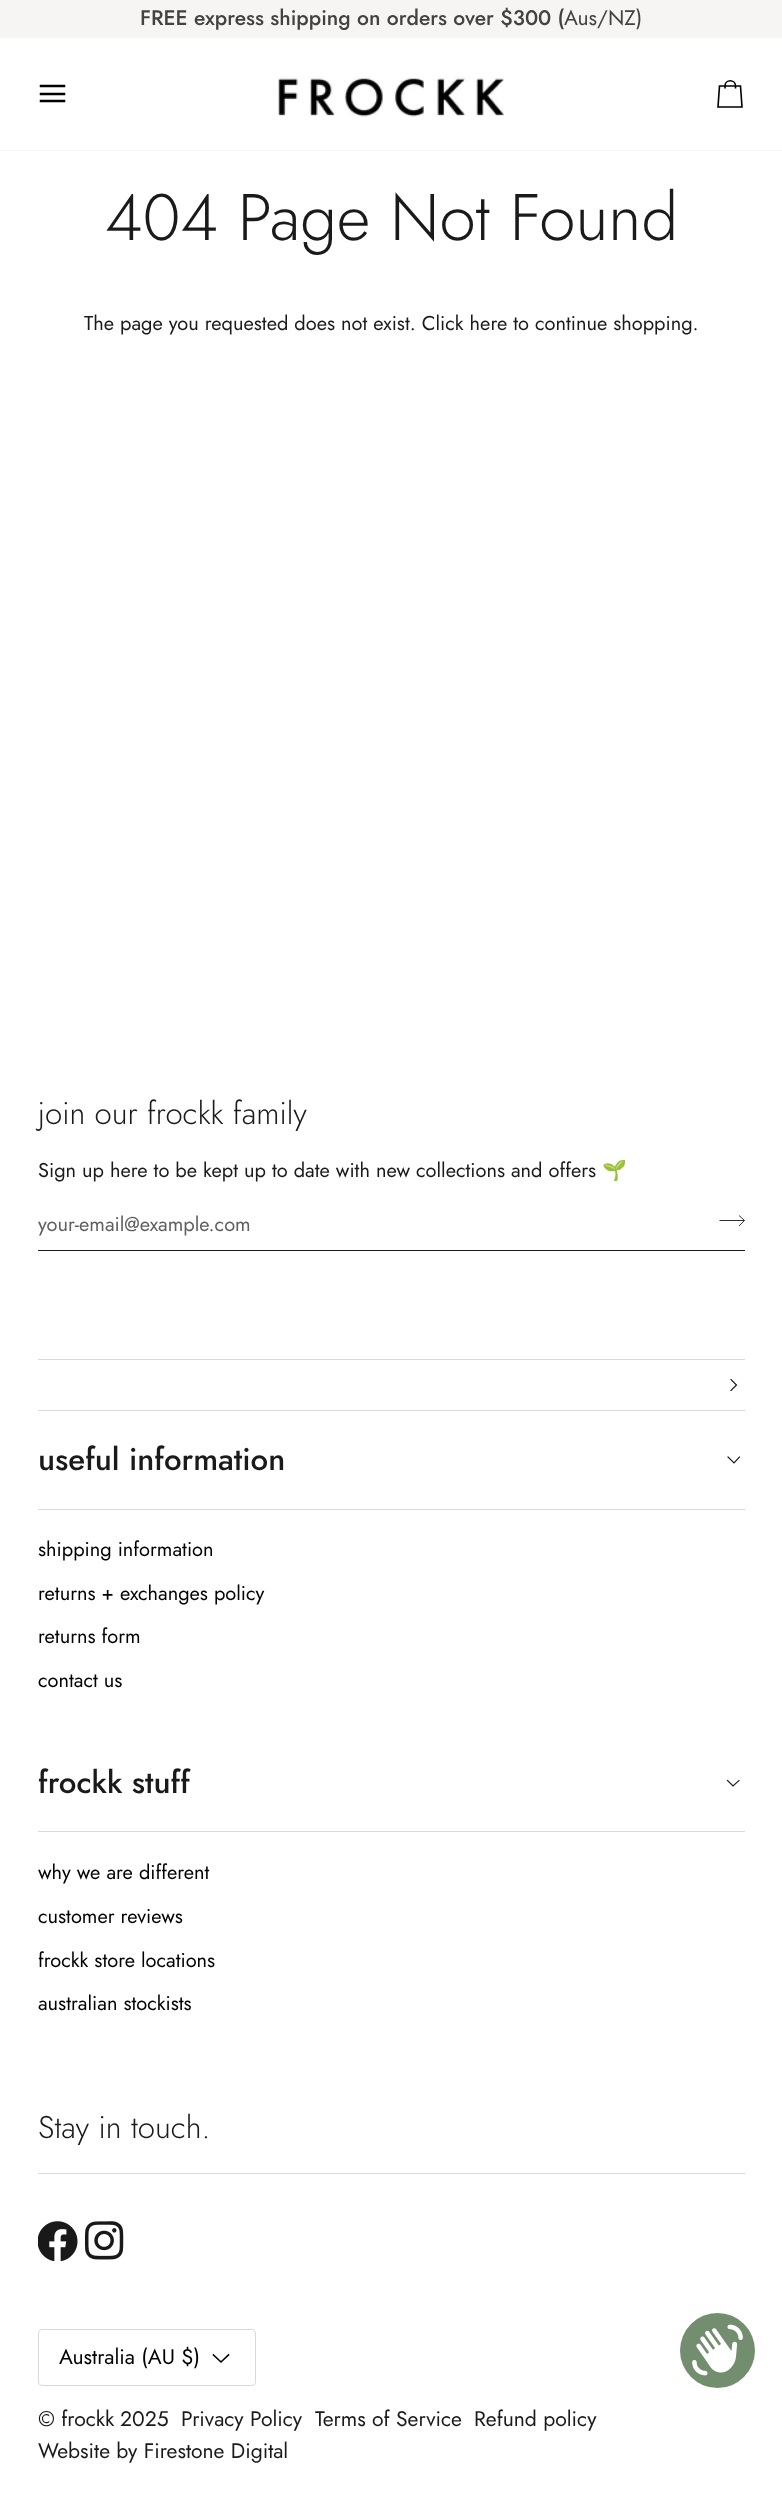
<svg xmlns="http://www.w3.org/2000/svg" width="782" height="2493">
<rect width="100%" height="100%" fill="#fff"/>
<rect width="782" height="38" fill="#f7f5f4"/>
<text x="140" y="25" style="font-family:Jost;font-size:21.1px;font-weight:500;fill:#424242">FREE express shipping on orders over $300 (</text>
<text x="564" y="25" style="font-family:Jost;font-size:21.1px;fill:#424242">Aus/NZ)</text>
<rect y="150" width="782" height="1" fill="#f7f5f4"/>
<path d="M64 86h-23m23 8h-23m23 7h-23" fill="none" stroke="#000" stroke-width="2.5" stroke-linecap="square"/>
<image x="278" y="76" width="226" height="41" href="media/1.png"/>
<path d="M735.5 88.5v-2.5h5l1.5 21h-24l1.5-21h5.5c0-7 10.5-7 10.5 0h-10.5v2.5" fill="none" stroke="#000" stroke-width="1.6"/>
<text x="105" y="240" style="font-family:Jost;font-size:65.6px;font-weight:300;fill:#1a1a1a">404 Page Not Found</text>
<text x="84" y="330" style="font-family:Jost;font-size:20px;fill:#1a1a1a">The page you requested does not exist. Click here to continue shopping.</text>
<text x="38" y="1124" style="font-family:Jost;font-size:31.25px;font-weight:300;fill:#1a1a1a">join our frockk family</text>
<text x="38" y="1177" style="font-family:Jost;font-size:20px;fill:#1a1a1a">Sign up here to be kept up to date with new collections and offers</text>
<text x="602" y="1177" style="font-family:Noto Color Emoji;font-size:20px;fill:#1a1a1a">🌱</text>
<rect x="38" y="1250" width="707" height="1" fill="#1a1a1a"/>
<text x="38" y="1231" style="font-family:Jost;font-size:20px;fill:#5f5f5f">your-email@example.com</text>
<path d="M739 1215.5l5.5 5l-5.5 5.5m-19.5-5.5h25" fill="none" stroke="#1a1a1a" stroke-width="0.9"/>
<rect x="38" y="1359" width="707" height="1" fill="#d9d9d9"/>
<rect x="38" y="1410" width="707" height="1" fill="#d9d9d9"/>
<path d="M731 1390.5l5.5-5.5l-5.5-5.5" fill="none" stroke="#1a1a1a" stroke-width="1.2" stroke-linecap="square"/>
<rect x="38" y="1509" width="707" height="1" fill="#d9d9d9"/>
<text x="38" y="1470" style="font-family:Jost;font-size:31.25px;font-weight:500;fill:#1a1a1a">useful information</text>
<path d="M728 1457l6 6l5.5-6" fill="none" stroke="#1a1a1a" stroke-width="1.2" stroke-linecap="square"/>
<text x="38" y="1556" style="font-family:Jost;font-size:20px;fill:#000">shipping information</text>
<text x="38" y="1600" style="font-family:Jost;font-size:20px;fill:#000">returns + exchanges policy</text>
<text x="38" y="1643" style="font-family:Jost;font-size:20px;fill:#000">returns form</text>
<text x="38" y="1687" style="font-family:Jost;font-size:20px;fill:#000">contact us</text>
<rect x="38" y="1831" width="707" height="1" fill="#d9d9d9"/>
<text x="38" y="1793" style="font-family:Jost;font-size:31.25px;font-weight:500;fill:#1a1a1a">frockk stuff</text>
<path d="M727.5 1780.5l5.5 5.5l6-5.5" fill="none" stroke="#1a1a1a" stroke-width="1.2" stroke-linecap="square"/>
<text x="38" y="1879" style="font-family:Jost;font-size:20px;fill:#000">why we are different</text>
<text x="38" y="1923" style="font-family:Jost;font-size:20px;fill:#000">customer reviews</text>
<text x="38" y="1967" style="font-family:Jost;font-size:20px;fill:#000">frockk store locations</text>
<text x="38" y="2010" style="font-family:Jost;font-size:20px;fill:#000">australian stockists</text>
<text x="38" y="2138" style="font-family:Jost;font-size:31.25px;font-weight:300;fill:#1a1a1a">Stay in touch.</text>
<rect x="38" y="2173" width="707" height="1" fill="#d9d9d9"/>
<image x="38" y="2221" width="40" height="40" href="media/2.png"/>
<image x="85" y="2221" width="39" height="39" href="media/3.png"/>
<rect x="38.5" y="2329.5" width="217" height="56" rx="3.5" fill="none" stroke="#d9d9d9"/>
<text x="59" y="2364" style="font-family:Jost;font-size:21.1px;fill:#000">Australia (AU $)</text>
<path d="M213.5 2355l7.5 7l7.5-7" fill="none" stroke="#000" stroke-width="1.6" stroke-linecap="square"/>
<text x="38" y="2426" style="font-family:Jost;font-size:21.1px;fill:#1a1a1a">© frockk</text>
<text x="120" y="2426" style="font-family:Jost;font-size:21.1px;fill:#1a1a1a">2025</text>
<text x="181" y="2426" style="font-family:Jost;font-size:21.1px;fill:#1a1a1a">Privacy Policy</text>
<text x="315" y="2426" style="font-family:Jost;font-size:21.1px;fill:#1a1a1a">Terms of Service</text>
<text x="474" y="2426" style="font-family:Jost;font-size:21.1px;fill:#1a1a1a">Refund policy</text>
<text x="38" y="2458" style="font-family:Jost;font-size:21.1px;fill:#1a1a1a">Website by Firestone Digital</text>
<circle cx="717.5" cy="2350.5" r="37.5" fill="#738e6e"/>
<image x="692" y="2324" width="51" height="52" href="media/4.png"/>
</svg>
